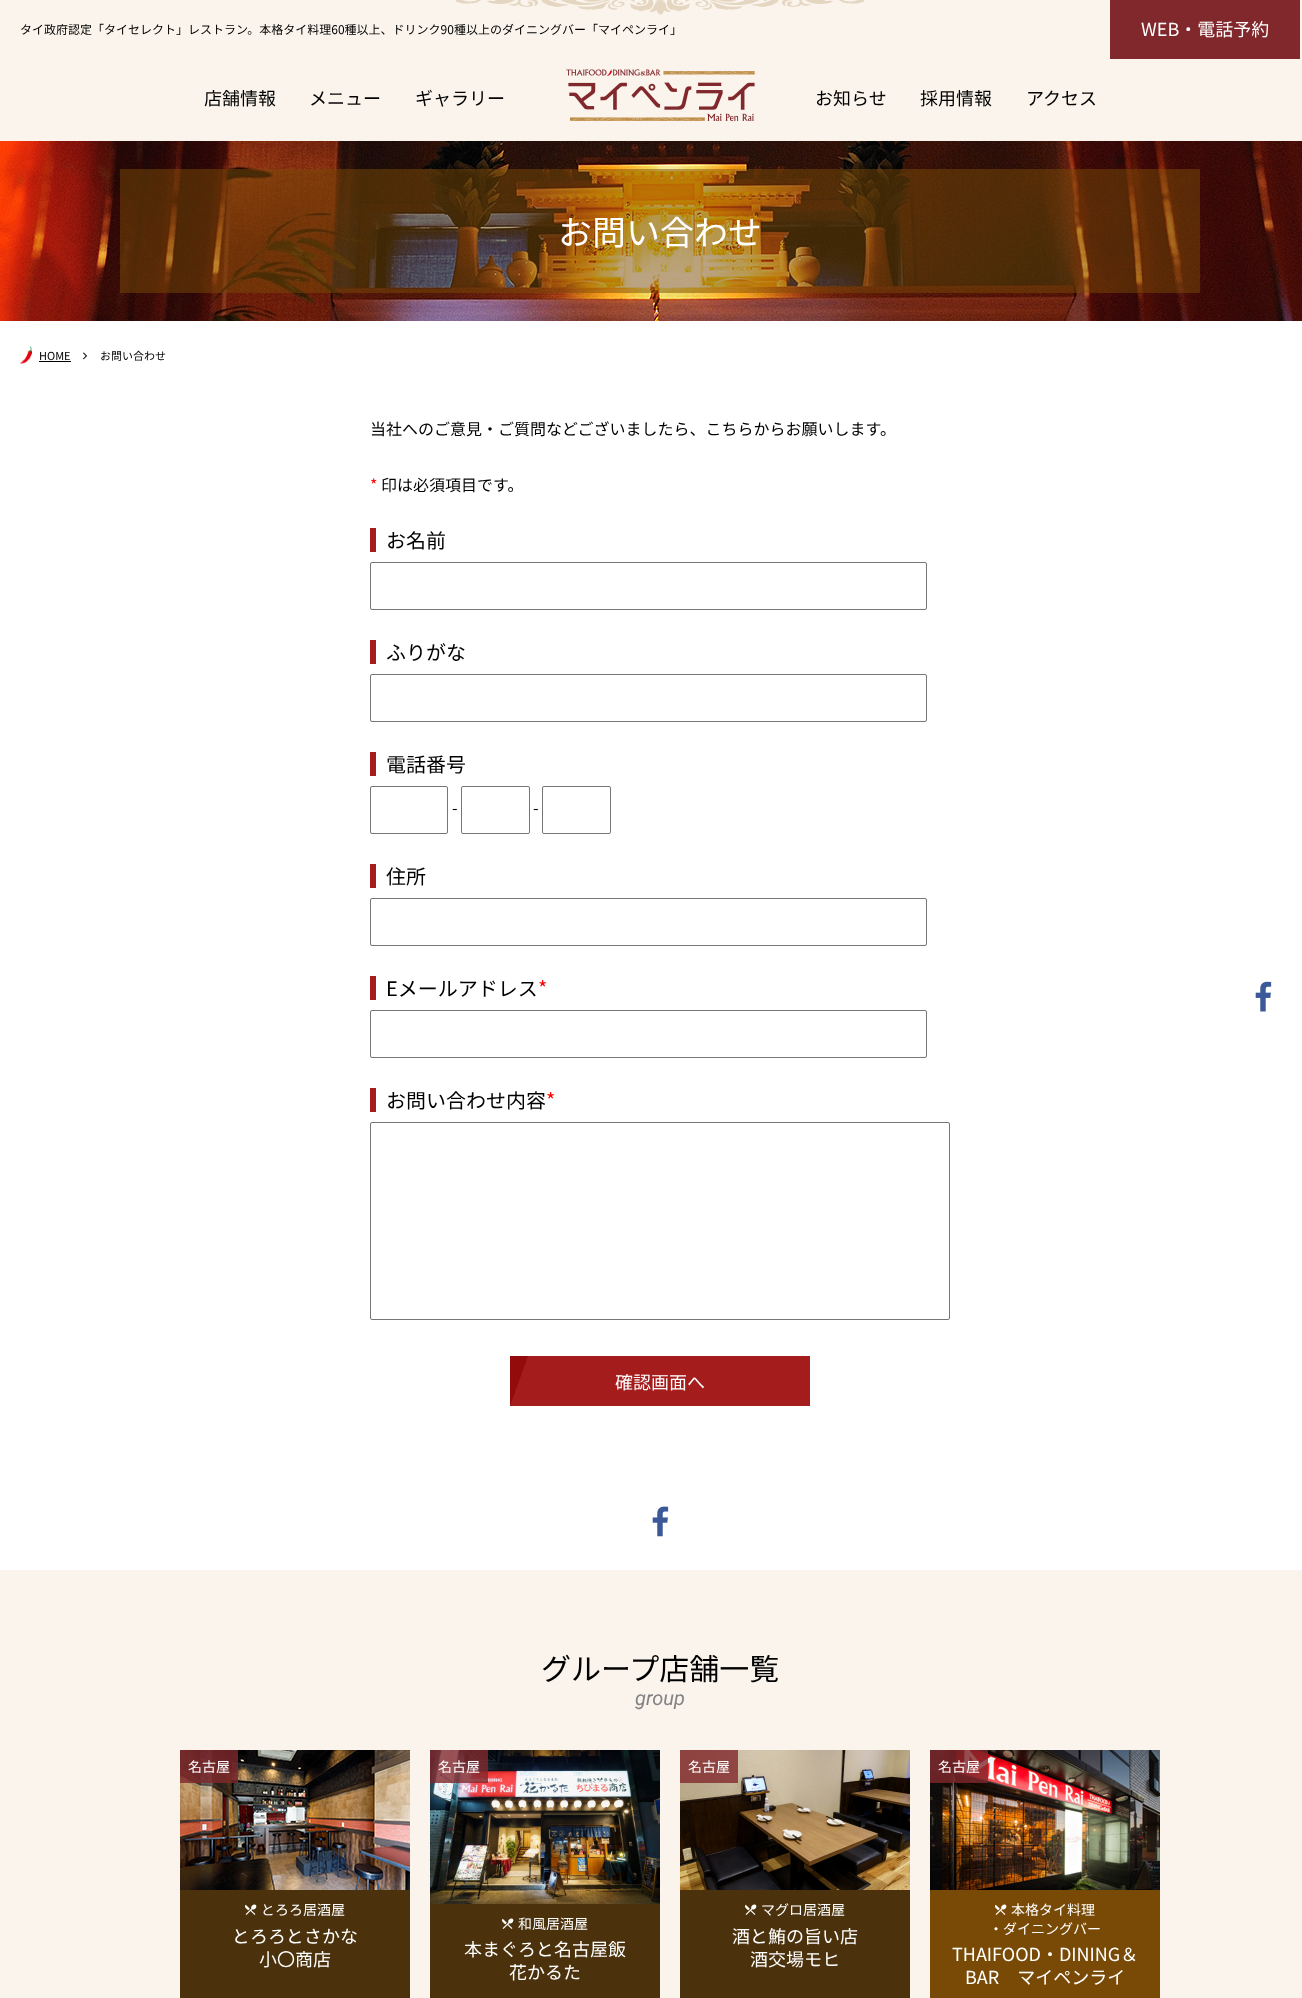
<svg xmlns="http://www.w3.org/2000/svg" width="1302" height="1998">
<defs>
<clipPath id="clip1"><rect x="510" y="1356" width="300" height="50"/></clipPath>
</defs>
<rect width="100%" height="100%" fill="#fff"/>
<rect width="1302" height="141" fill="#faf4ec"/>
<image x="456" y="0" width="408" height="15" href="media/1.png"/>
<text x="20" y="34" style="font-family:Noto Sans JP;font-size:12px;fill:#000">タイ政府認定「タイセレクト」レストラン。本格タイ料理60種以上、ドリンク90種以上のダイニングバー「マイペンライ」</text>
<rect x="1110" width="190" height="59" fill="#81282c"/>
<text x="1141" y="36" style="font-family:Noto Sans JP;font-size:18px;fill:#fff">WEB・電話予約</text>
<text x="204" y="105" style="font-family:Noto Sans JP;font-size:18px;fill:#000">店舗情報</text>
<text x="309" y="105" style="font-family:Noto Sans JP;font-size:18px;fill:#000">メニュー</text>
<text x="415" y="105" style="font-family:Noto Sans JP;font-size:18px;fill:#000">ギャラリー</text>
<image x="566" y="69" width="189" height="52" href="media/2.png"/>
<text x="815" y="105" style="font-family:Noto Sans JP;font-size:18px;fill:#000">お知らせ</text>
<text x="920" y="105" style="font-family:Noto Sans JP;font-size:18px;fill:#000">採用情報</text>
<text x="1026" y="105" style="font-family:Noto Sans JP;font-size:18px;fill:#000">アクセス</text>
<image x="0" y="141" width="1302" height="180" href="media/3.png"/>
<rect x="120" y="169" width="1080" height="124" fill="#794a0580"/>
<text x="558" y="245" style="font-family:Noto Sans JP;font-size:34px;fill:#fff">お問い合わせ</text>
<image x="20" y="346" width="12" height="18" href="media/4.png"/>
<text x="39" y="360" style="font-family:Noto Sans JP;font-size:11px;fill:#000">HOME</text>
<rect x="39" y="361" width="32" height="1" fill="#000"/>
<image x="83" y="352" width="4" height="8" href="media/5.png"/>
<text x="100" y="360" style="font-family:Noto Sans JP;font-size:11px;fill:#000">お問い合わせ</text>
<text x="370" y="435" style="font-family:Noto Sans JP;font-size:16px;fill:#000">当社へのご意見・ご質問などございましたら、こちらからお願いします。</text>
<text x="370" y="491" style="font-family:Noto Sans JP;font-size:16px;fill:#f00">*</text>
<text x="381" y="491" style="font-family:Noto Sans JP;font-size:16px;fill:#000">印は必須項目です。</text>
<rect x="370" y="528" width="6" height="24" fill="#a51c1d"/>
<text x="386" y="548" style="font-family:Noto Sans JP;font-size:20px;fill:#000">お名前</text>
<rect x="370.5" y="562.5" width="556" height="47" rx="1.5" fill="none" stroke="#767676"/>
<rect x="370" y="640" width="6" height="24" fill="#a51c1d"/>
<text x="386" y="660" style="font-family:Noto Sans JP;font-size:20px;fill:#000">ふりがな</text>
<rect x="370.5" y="674.5" width="556" height="47" rx="1.5" fill="none" stroke="#767676"/>
<rect x="370" y="752" width="6" height="24" fill="#a51c1d"/>
<text x="386" y="772" style="font-family:Noto Sans JP;font-size:20px;fill:#000">電話番号</text>
<rect x="370.5" y="786.5" width="77" height="47" rx="1.5" fill="none" stroke="#767676"/>
<text x="452" y="814" style="font-family:Noto Sans JP;font-size:16px;fill:#000">-</text>
<rect x="461.5" y="786.5" width="68" height="47" rx="1.5" fill="none" stroke="#767676"/>
<text x="533" y="814" style="font-family:Noto Sans JP;font-size:16px;fill:#000">-</text>
<rect x="542.5" y="786.5" width="68" height="47" rx="1.5" fill="none" stroke="#767676"/>
<rect x="370" y="864" width="6" height="24" fill="#a51c1d"/>
<text x="386" y="884" style="font-family:Noto Sans JP;font-size:20px;fill:#000">住所</text>
<rect x="370.5" y="898.5" width="556" height="47" rx="1.5" fill="none" stroke="#767676"/>
<rect x="370" y="976" width="6" height="24" fill="#a51c1d"/>
<text x="386" y="996" style="font-family:Noto Sans JP;font-size:20px;fill:#000">Eメールアドレス</text>
<text x="538" y="996" style="font-family:Noto Sans JP;font-size:20px;fill:#f00">*</text>
<rect x="370.5" y="1010.5" width="556" height="47" rx="1.5" fill="none" stroke="#767676"/>
<rect x="370" y="1088" width="6" height="24" fill="#a51c1d"/>
<text x="386" y="1108" style="font-family:Noto Sans JP;font-size:20px;fill:#000">お問い合わせ内容</text>
<text x="546" y="1108" style="font-family:Noto Sans JP;font-size:20px;fill:#f00">*</text>
<rect x="370.5" y="1122.5" width="579" height="197" rx="1.5" fill="none" stroke="#767676"/>
<rect x="510" y="1356" width="300" height="50" fill="#a51c1c"/>
<g clip-path="url(#clip1)">
<path d="M168 1356h360l-18 50h-360z" fill="#940b0b"/>
</g>
<text x="615" y="1389" style="font-family:Noto Sans JP;font-size:18px;fill:#fff">確認画面へ</text>
<image x="1255" y="981" width="17" height="31" href="media/6.png"/>
<image x="652" y="1506" width="17" height="31" href="media/7.png"/>
<rect y="1570" width="1302" height="428" fill="#faf4ec"/>
<text x="541" y="1680" style="font-family:Noto Sans JP;font-size:30px;fill:#000">グループ店舗一覧</text>
<text x="635" y="1705" style="font-family:Roboto;font-size:20px;font-style:italic;fill:#838383">group</text>
<rect x="180" y="1890" width="230" height="108" fill="#4b320d"/>
<image x="180" y="1750" width="230" height="140" href="media/8.png"/>
<rect x="180" y="1750" width="58" height="33" fill="#81282ccc"/>
<text x="188" y="1772" style="font-family:Noto Sans JP;font-size:14px;fill:#fff">名古屋</text>
<image x="245" y="1904" width="12" height="11" href="media/9.png"/>
<text x="261" y="1915" style="font-family:Noto Sans JP;font-size:14px;fill:#fff">とろろ居酒屋</text>
<text x="232" y="1943" style="font-family:Noto Sans JP;font-size:18px;fill:#fff">とろろとさかな</text>
<text x="259" y="1966" style="font-family:Noto Sans JP;font-size:18px;fill:#fff">小〇商店</text>
<rect x="430" y="1904" width="230" height="94" fill="#4b320d"/>
<image x="430" y="1750" width="230" height="154" href="media/10.png"/>
<rect x="430" y="1750" width="58" height="33" fill="#81282ccc"/>
<text x="438" y="1772" style="font-family:Noto Sans JP;font-size:14px;fill:#fff">名古屋</text>
<image x="502" y="1918" width="12" height="11" href="media/9.png"/>
<text x="518" y="1929" style="font-family:Noto Sans JP;font-size:14px;fill:#fff">和風居酒屋</text>
<text x="464" y="1956" style="font-family:Noto Sans JP;font-size:18px;fill:#fff">本まぐろと名古屋飯</text>
<text x="509" y="1979" style="font-family:Noto Sans JP;font-size:18px;fill:#fff">花かるた</text>
<rect x="680" y="1890" width="230" height="108" fill="#4b320d"/>
<image x="680" y="1750" width="230" height="140" href="media/11.png"/>
<rect x="680" y="1750" width="58" height="33" fill="#81282ccc"/>
<text x="688" y="1772" style="font-family:Noto Sans JP;font-size:14px;fill:#fff">名古屋</text>
<image x="745" y="1904" width="12" height="11" href="media/9.png"/>
<text x="761" y="1915" style="font-family:Noto Sans JP;font-size:14px;fill:#fff">マグロ居酒屋</text>
<text x="732" y="1943" style="font-family:Noto Sans JP;font-size:18px;fill:#fff">酒と鮪の旨い店</text>
<text x="750" y="1966" style="font-family:Noto Sans JP;font-size:18px;fill:#fff">酒交場モヒ</text>
<rect x="930" y="1890" width="230" height="108" fill="#794a05"/>
<image x="930" y="1750" width="230" height="140" href="media/12.png"/>
<rect x="930" y="1750" width="58" height="33" fill="#81282ccc"/>
<text x="938" y="1772" style="font-family:Noto Sans JP;font-size:14px;fill:#fff">名古屋</text>
<image x="995" y="1904" width="12" height="11" href="media/13.png"/>
<text x="1011" y="1915" style="font-family:Noto Sans JP;font-size:14px;fill:#fff">本格タイ料理</text>
<text x="989" y="1934" style="font-family:Noto Sans JP;font-size:14px;fill:#fff">・ダイニングバー</text>
<text x="952" y="1961" style="font-family:Noto Sans JP;font-size:18px;fill:#fff">THAIFOOD・DINING＆</text>
<text x="965" y="1984" style="font-family:Noto Sans JP;font-size:18px;fill:#fff">BAR　マイペンライ</text>
</svg>
